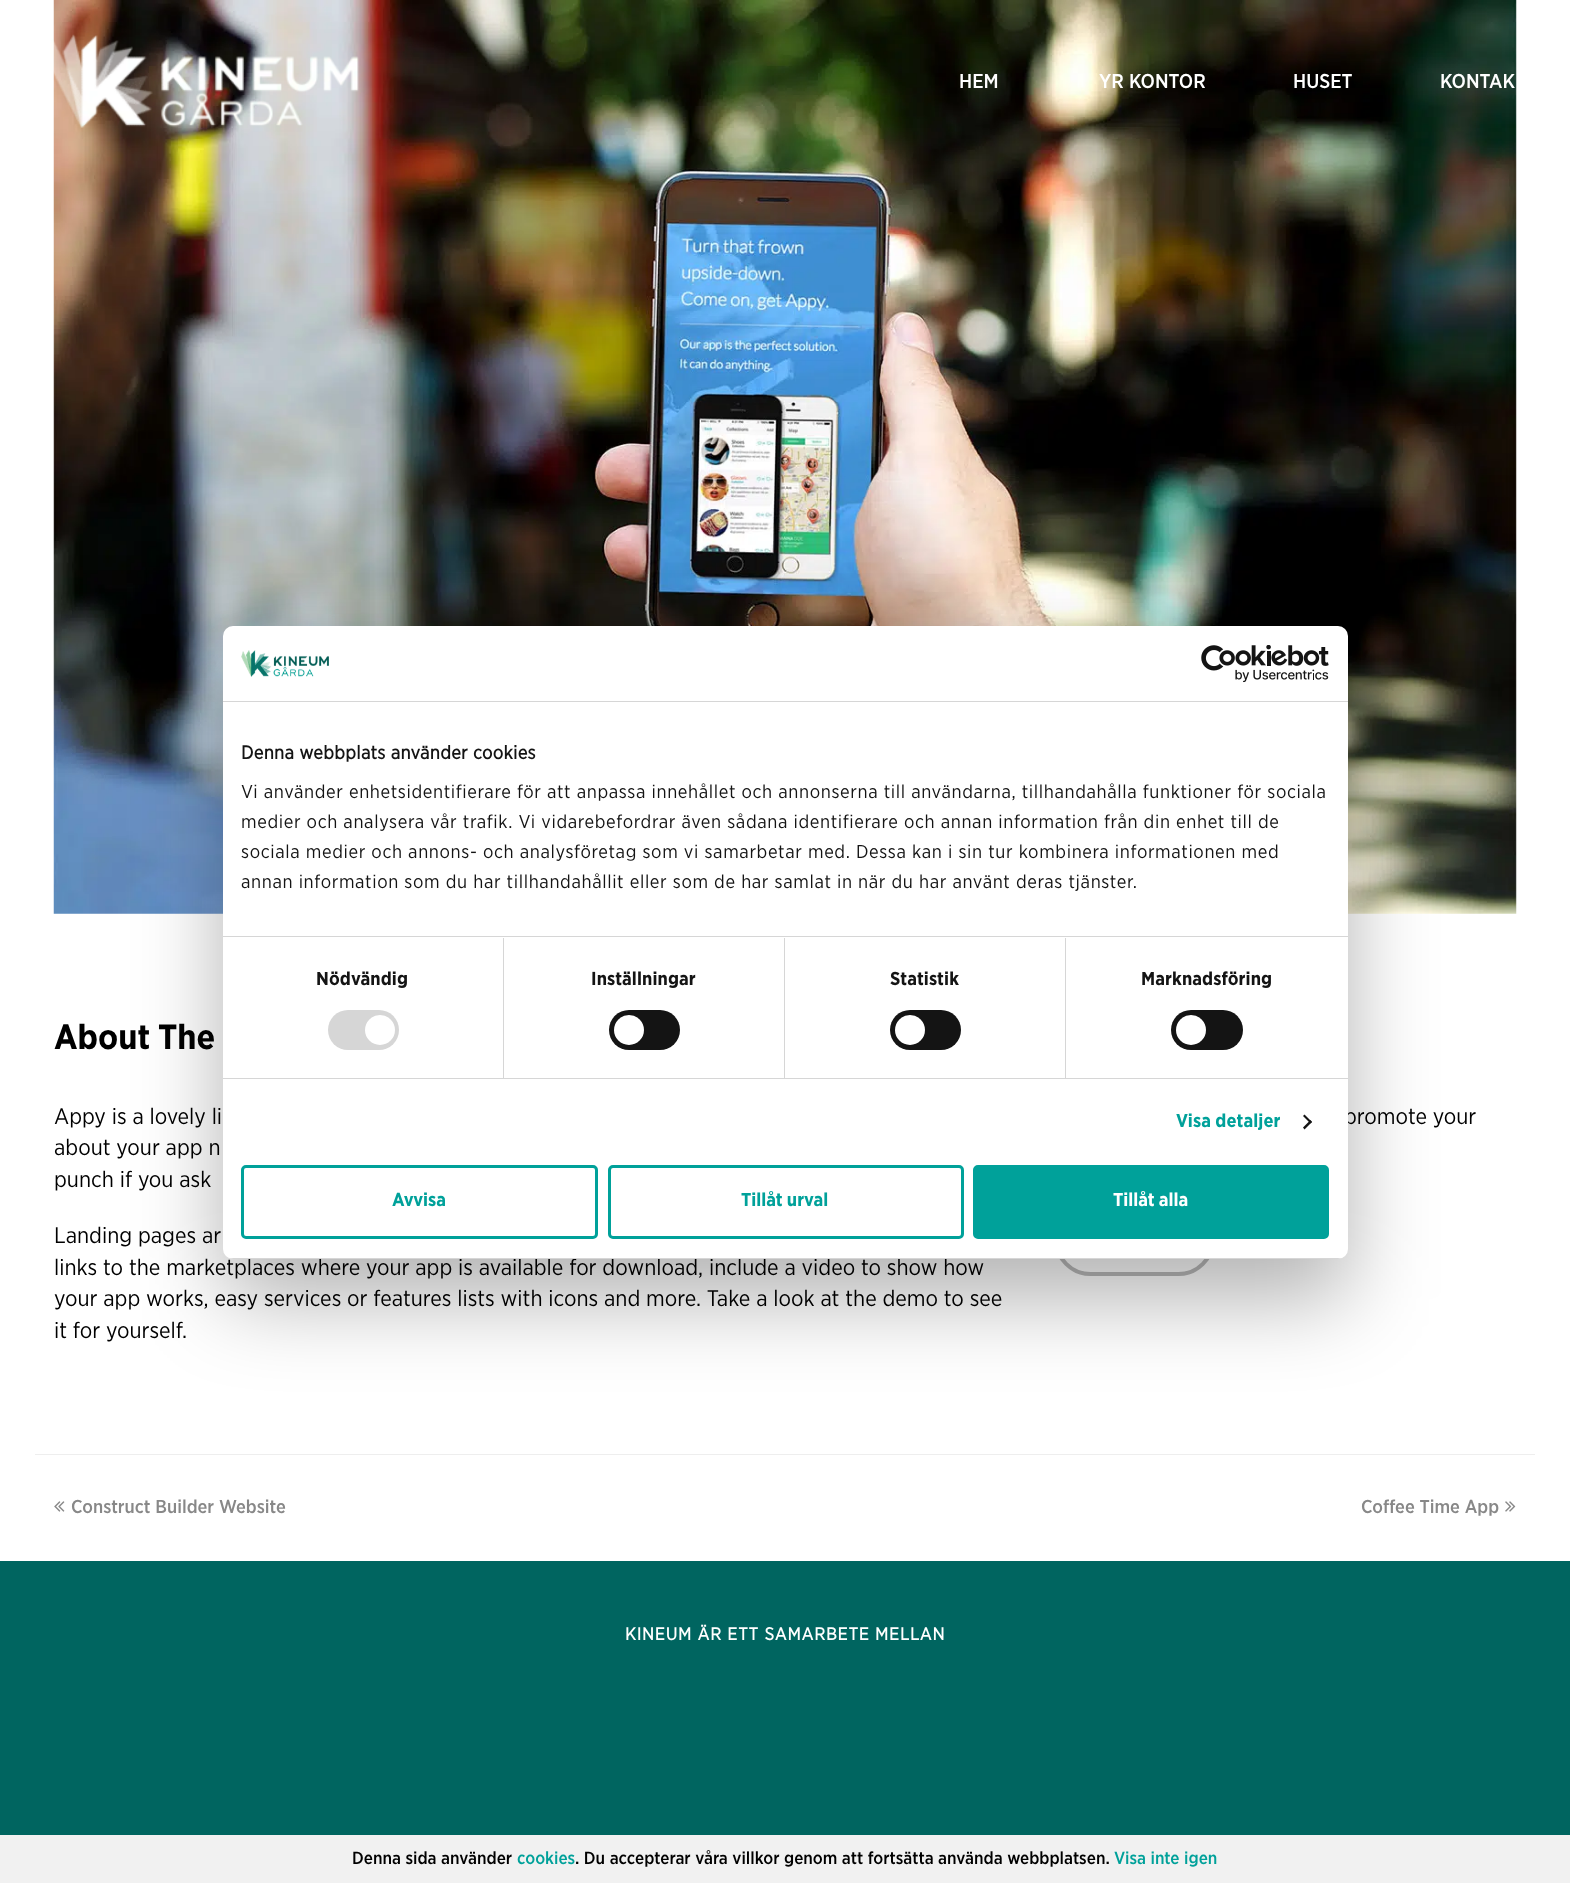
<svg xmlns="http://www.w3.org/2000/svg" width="1570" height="1883">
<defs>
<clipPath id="clip1"><rect x="223" y="626" width="1125" height="633" rx="10"/></clipPath>
</defs>
<rect width="100%" height="100%" fill="#fff"/>
<image x="53" y="0" width="1464" height="914" href="media/2.png"/>
<image x="50" y="34" width="309" height="94" href="media/1.png"/>
<text x="959" y="88" style="font-family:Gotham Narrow;font-size:20px;font-weight:500;fill:#fff">HEM</text>
<text x="1099" y="88" style="font-family:Gotham Narrow;font-size:20px;font-weight:500;fill:#fff">YR KONTOR</text>
<text x="1293" y="88" style="font-family:Gotham Narrow;font-size:20px;font-weight:500;fill:#fff">HUSET</text>
<text x="1440" y="88" style="font-family:Gotham Narrow;font-size:20px;font-weight:500;fill:#fff">KONTAK</text>
<text x="54" y="1049" style="font-family:Gotham Narrow;font-size:35px;font-weight:bold;fill:#000">About The</text>
<text x="54" y="1124" style="font-family:Gotham Narrow;font-size:22.5px;fill:#000">Appy is a lovely li</text>
<text x="54" y="1155" style="font-family:Gotham Narrow;font-size:22.5px;fill:#000">about your app n</text>
<text x="54" y="1187" style="font-family:Gotham Narrow;font-size:22.5px;fill:#000">punch if you ask</text>
<text x="54" y="1243" style="font-family:Gotham Narrow;font-size:22.5px;fill:#000">Landing pages ar</text>
<text x="54" y="1275" style="font-family:Gotham Narrow;font-size:22.5px;fill:#000">links to the marketplaces where your app is available for download, include a video to show how</text>
<text x="54" y="1306" style="font-family:Gotham Narrow;font-size:22.5px;fill:#000">your app works, easy services or features lists with icons and more. Take a look at the demo to see</text>
<text x="54" y="1338" style="font-family:Gotham Narrow;font-size:22.5px;fill:#000">it for yourself.</text>
<text x="1344" y="1124" style="font-family:Gotham Narrow;font-size:22.5px;fill:#000">promote your</text>
<rect x="1056" y="1205" width="157" height="69" rx="34.5" fill="none" stroke="#bbb" stroke-width="4"/>
<rect x="35" y="1454" width="1500" height="1" fill="#eee"/>
<image x="54" y="1501" width="11" height="11" href="media/3.png"/>
<text x="71" y="1513" style="font-family:Gotham Narrow;font-size:18.75px;font-weight:500;fill:#888">Construct Builder Website</text>
<text x="1361" y="1513" style="font-family:Gotham Narrow;font-size:18.75px;font-weight:500;fill:#888">Coffee Time App</text>
<image x="1505" y="1501" width="11" height="11" href="media/4.png"/>
<rect y="1561" width="1570" height="274" fill="#006560"/>
<text x="625" y="1640" style="font-family:'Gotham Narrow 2';font-size:17.5px;font-weight:bold;letter-spacing:0.9px;fill:#fff">KINEUM ÄR ETT SAMARBETE MELLAN</text>
<rect x="223" y="666" width="1125" height="633" rx="10" fill="#0000004d" filter="blur(42.5px)"/>
<rect x="223" y="626" width="1125" height="633" rx="10" fill="#fff"/>
<rect x="223" y="701" width="1125" height="1" fill="#d6d6d6"/>
<image x="241" y="650" width="88" height="27" href="media/5.png"/>
<image x="1201" y="645" width="128" height="38" href="media/6.png"/>
<rect x="223" y="936" width="1125" height="1" fill="#d6d6d6"/>
<text x="241" y="759" style="font-family:'Gotham Narrow 2';font-size:18.75px;font-weight:bold;letter-spacing:0.3px;fill:#141414">Denna webbplats använder cookies</text>
<text x="241" y="798" style="font-family:Gotham Narrow;font-size:18.75px;letter-spacing:0.62px;fill:#141414">Vi använder enhetsidentifierare för att anpassa innehållet och annonserna till användarna, tillhandahålla funktioner för sociala</text>
<text x="241" y="828" style="font-family:Gotham Narrow;font-size:18.75px;letter-spacing:0.62px;fill:#141414">medier och analysera vår trafik. Vi vidarebefordrar även sådana identifierare och annan information från din enhet till de</text>
<text x="241" y="858" style="font-family:Gotham Narrow;font-size:18.75px;letter-spacing:0.62px;fill:#141414">sociala medier och annons- och analysföretag som vi samarbetar med. Dessa kan i sin tur kombinera informationen med</text>
<text x="241" y="888" style="font-family:Gotham Narrow;font-size:18.75px;letter-spacing:0.62px;fill:#141414">annan information som du har tillhandahållit eller som de har samlat in när du har använt deras tjänster.</text>
<rect x="223" y="1078" width="1125" height="1" fill="#d6d6d6"/>
<rect x="503" y="938" width="1" height="140" fill="#d6d6d6"/>
<text x="316" y="985" style="font-family:Gotham Narrow;font-size:18.75px;font-weight:bold;letter-spacing:0.1px;fill:#141414">Nödvändig</text>
<rect x="328" y="1010" width="71" height="40" rx="20" fill="#d6d6d6"/>
<circle cx="380" cy="1030" r="15" fill="#fff"/>
<rect x="784" y="938" width="1" height="140" fill="#d6d6d6"/>
<text x="591" y="985" style="font-family:Gotham Narrow;font-size:18.75px;font-weight:bold;letter-spacing:0.1px;fill:#141414">Inställningar</text>
<rect x="609" y="1010" width="71" height="40" rx="20" fill="#141414"/>
<circle cx="629" cy="1030" r="15" fill="#fff"/>
<rect x="1065" y="938" width="1" height="140" fill="#d6d6d6"/>
<text x="890" y="985" style="font-family:Gotham Narrow;font-size:18.75px;font-weight:bold;letter-spacing:0.1px;fill:#141414">Statistik</text>
<rect x="890" y="1010" width="71" height="40" rx="20" fill="#141414"/>
<circle cx="910" cy="1030" r="15" fill="#fff"/>
<text x="1141" y="985" style="font-family:Gotham Narrow;font-size:18.75px;font-weight:bold;letter-spacing:0.1px;fill:#141414">Marknadsföring</text>
<rect x="1171" y="1010" width="72" height="40" rx="20" fill="#141414"/>
<circle cx="1191" cy="1030" r="15" fill="#fff"/>
<text x="1176" y="1127" style="font-family:Gotham Narrow;font-size:18.75px;font-weight:bold;letter-spacing:0.1px;fill:#00a19a">Visa detaljer</text>
<path d="M1304.5 1114.5l7.5 7.5l-1.5 1.5l-7.5-7.5z" fill="#141414"/>
<path d="M1310.5 1120l1.5 2l-7.5 7.5l-1.5-2z" fill="#141414"/>
<g clip-path="url(#clip1)">
<rect x="223" y="1258" width="1125" height="1" fill="#d6d6d6"/>
</g>
<rect x="242.5" y="1166.5" width="354" height="71" rx="3.5" fill="none" stroke="#00a19a" stroke-width="3"/>
<text x="392" y="1206" style="font-family:Gotham Narrow;font-size:18.75px;font-weight:bold;fill:#00a19a">Avvisa</text>
<rect x="609.5" y="1166.5" width="353" height="71" rx="3.5" fill="none" stroke="#00a19a" stroke-width="3"/>
<text x="741" y="1206" style="font-family:Gotham Narrow;font-size:18.75px;font-weight:bold;fill:#00a19a">Tillåt urval</text>
<rect x="974.5" y="1166.5" width="353" height="71" rx="3.5" fill="#00a19a" stroke="#00a19a" stroke-width="3"/>
<text x="1113" y="1206" style="font-family:Gotham Narrow;font-size:18.75px;font-weight:bold;fill:#fff">Tillåt alla</text>
<rect y="1835" width="1570" height="48" fill="#f1f1f1"/>
<text x="352" y="1864" style="font-family:Gotham Narrow;font-size:17.5px;font-weight:500;fill:#000">Denna sida använder</text>
<text x="517" y="1864" style="font-family:Gotham Narrow;font-size:17.5px;font-weight:500;fill:#00a19a">cookies</text>
<text x="575" y="1864" style="font-family:Gotham Narrow;font-size:17.5px;font-weight:500;fill:#000">. Du accepterar våra villkor genom att fortsätta använda webbplatsen.</text>
<text x="1114" y="1864" style="font-family:Gotham Narrow;font-size:17.5px;font-weight:500;fill:#00a19a">Visa inte igen</text>
</svg>
